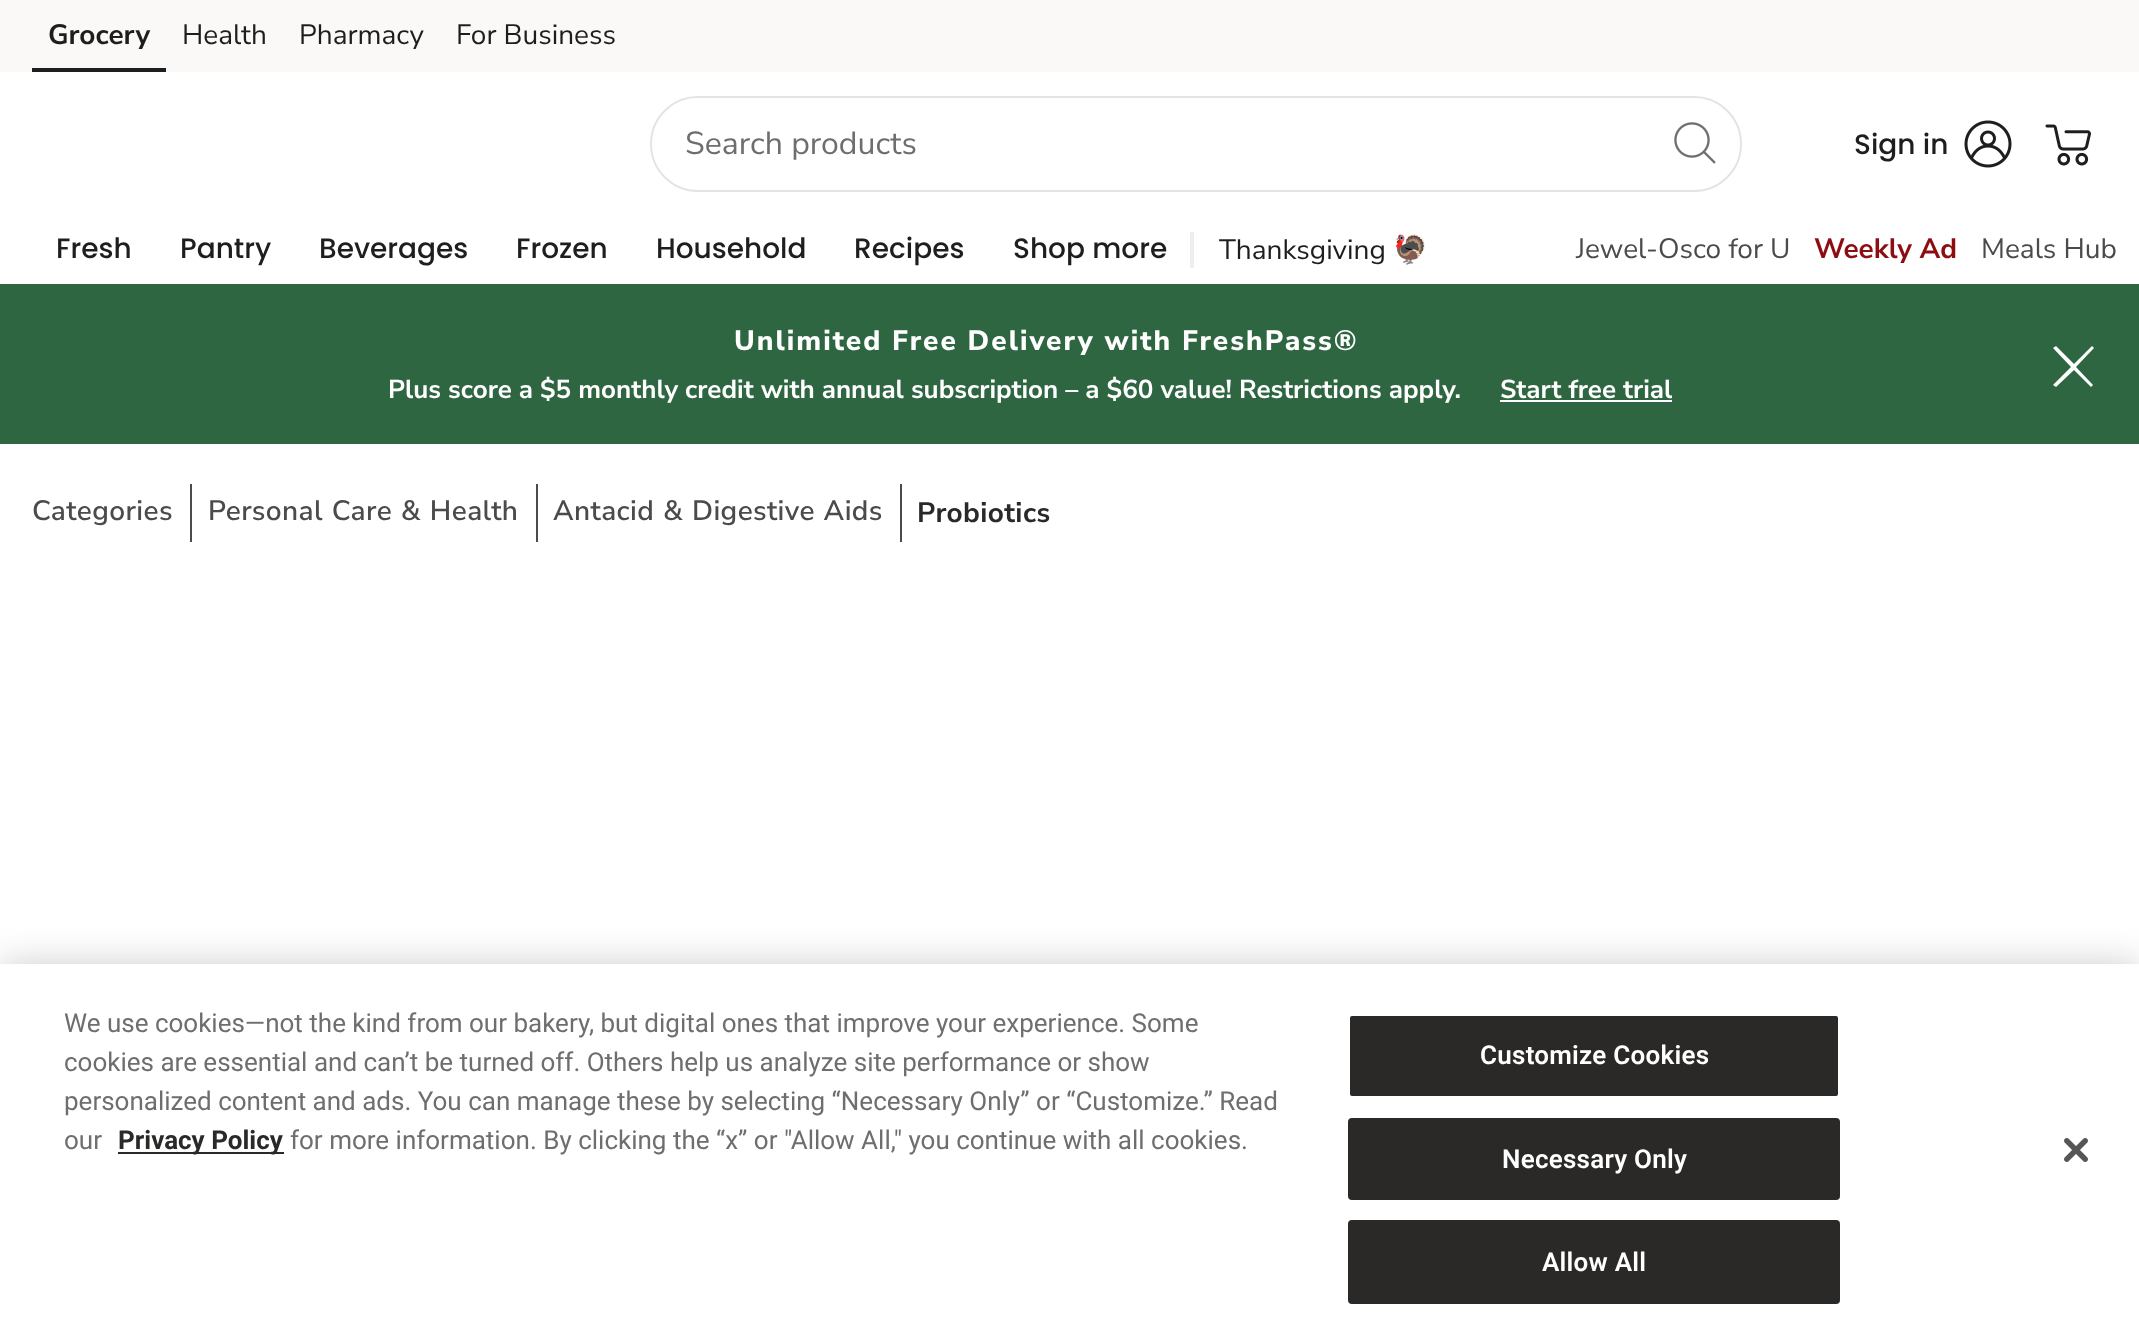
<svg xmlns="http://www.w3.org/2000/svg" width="2139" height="1343">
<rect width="100%" height="100%" fill="#fff"/>
<rect width="2139" height="72" fill="#faf9f8"/>
<rect x="32" y="68" width="134" height="4" fill="#1f1e1e"/>
<text x="48" y="44" style="font-family:Nunito Sans;font-size:28px;font-weight:bold;fill:#1f1e1e">Grocery</text>
<text x="182" y="44" style="font-family:Nunito Sans;font-size:28px;fill:#1f1e1e">Health</text>
<text x="299" y="44" style="font-family:Nunito Sans;font-size:28px;fill:#1f1e1e">Pharmacy</text>
<text x="456" y="44" style="font-family:Nunito Sans;font-size:28px;fill:#1f1e1e">For Business</text>
<rect x="651" y="97" width="1090" height="94" rx="47" fill="none" stroke="#e5e4e3" stroke-width="2"/>
<text x="685" y="154" style="font-family:Nunito Sans;font-size:32px;fill:#6e6e6d">Search products</text>
<image x="1674" y="122" width="42" height="42" href="media/1.png"/>
<text x="1854" y="154" style="font-family:Poppins;font-size:28px;font-weight:500;fill:#1f1e1e">Sign in</text>
<image x="1964" y="120" width="48" height="48" href="media/2.png"/>
<image x="2045" y="124" width="46" height="42" href="media/3.png"/>
<text x="56" y="258" style="font-family:Poppins;font-size:28px;font-weight:500;fill:#1f1e1e">Fresh</text>
<text x="180" y="258" style="font-family:Poppins;font-size:28px;font-weight:500;fill:#1f1e1e">Pantry</text>
<text x="319" y="258" style="font-family:Poppins;font-size:28px;font-weight:500;fill:#1f1e1e">Beverages</text>
<text x="516" y="258" style="font-family:Poppins;font-size:28px;font-weight:500;fill:#1f1e1e">Frozen</text>
<text x="656" y="258" style="font-family:Poppins;font-size:28px;font-weight:500;fill:#1f1e1e">Household</text>
<text x="854" y="258" style="font-family:Poppins;font-size:28px;font-weight:500;fill:#1f1e1e">Recipes</text>
<text x="1013" y="258" style="font-family:Poppins;font-size:28px;font-weight:500;fill:#1f1e1e">Shop more</text>
<rect x="1190" y="232" width="4" height="36" fill="#f0eeed"/>
<text x="1219" y="259" style="font-family:Nunito Sans;font-size:28px;fill:#1f1e1e">Thanksgiving</text>
<text x="1393" y="259" style="font-family:Noto Color Emoji;font-size:28px;fill:#1f1e1e">🦃</text>
<text x="1576" y="258" style="font-family:Nunito Sans;font-size:28px;fill:#4b4b4b">Jewel-Osco for U</text>
<text x="1814" y="258" style="font-family:Nunito Sans;font-size:28px;font-weight:bold;fill:#8c0e12">Weekly Ad</text>
<text x="1981" y="258" style="font-family:Nunito Sans;font-size:28px;fill:#4b4b4b">Meals Hub</text>
<rect y="284" width="2139" height="160" fill="#2f6642"/>
<text x="734" y="350" style="font-family:Nunito Sans;font-size:28px;font-weight:800;letter-spacing:2px;fill:#fff">Unlimited Free Delivery with FreshPass®</text>
<text x="388" y="398" style="font-family:Nunito Sans;font-size:26px;font-weight:bold;fill:#fff">Plus score a $5 monthly credit with annual subscription – a $60 value! Restrictions apply.</text>
<text x="1500" y="398" style="font-family:Nunito Sans;font-size:26px;font-weight:bold;fill:#fff">Start free trial</text>
<rect x="1500" y="400" width="172" height="2" fill="#fff"/>
<path d="M2092 346l2 2l-18 19l17 18l-2 2l-17-17l-18 17l-3-2l18-18l-18-19l3-2l18 18z" fill="#fff" fill-rule="evenodd"/>
<rect x="190" y="484" width="2" height="58" fill="#4b4b4b"/>
<text x="32" y="520" style="font-family:Nunito Sans;font-size:28px;font-weight:600;letter-spacing:0.4px;fill:#4b4b4b">Categories</text>
<rect x="536" y="484" width="2" height="58" fill="#4b4b4b"/>
<text x="208" y="520" word-spacing="1" style="font-family:Nunito Sans;font-size:28px;font-weight:600;letter-spacing:0.4px;fill:#4b4b4b">Personal Care &amp; Health</text>
<rect x="900" y="484" width="2" height="58" fill="#4b4b4b"/>
<text x="553" y="520" word-spacing="1" style="font-family:Nunito Sans;font-size:28px;font-weight:600;letter-spacing:0.4px;fill:#4b4b4b">Antacid &amp; Digestive Aids</text>
<text x="917" y="522" style="font-family:Nunito Sans;font-size:28px;font-weight:bold;letter-spacing:0.4px;fill:#2a2928">Probiotics</text>
<rect y="964" width="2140" height="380" fill="#00000033" filter="blur(18px)"/>
<rect y="964" width="2139" height="379" fill="#fff"/>
<text x="64" y="1032" style="font-family:Roboto;font-size:26px;fill:#6e6e6d">We use cookies—not the kind from our bakery, but digital ones that improve your experience. Some</text>
<text x="64" y="1071" style="font-family:Roboto;font-size:26px;fill:#6e6e6d">cookies are essential and can’t be turned off. Others help us analyze site performance or show</text>
<text x="64" y="1110" style="font-family:Roboto;font-size:26px;fill:#6e6e6d">personalized content and ads. You can manage these by selecting “Necessary Only” or “Customize.” Read</text>
<text x="64" y="1149" style="font-family:Roboto;font-size:26px;fill:#6e6e6d">our</text>
<rect x="118" y="1152" width="166" height="2" fill="#2a2928"/>
<text x="118" y="1149" style="font-family:Roboto;font-size:26px;font-weight:bold;fill:#2a2928">Privacy Policy</text>
<text x="290" y="1149" style="font-family:Roboto;font-size:26px;fill:#6e6e6d">for more information. By clicking the “x” or "Allow All," you continue with all cookies.</text>
<rect x="1349" y="1015" width="490" height="82" rx="3" fill="#2a2928" stroke="#fff" stroke-width="2"/>
<text x="1480" y="1064" style="font-family:Roboto;font-size:26px;font-weight:600;letter-spacing:0.25px;fill:#fff">Customize Cookies</text>
<rect x="1349" y="1119" width="490" height="80" rx="3" fill="#2a2928" stroke="#2a2928" stroke-width="2"/>
<text x="1502" y="1168" style="font-family:Roboto;font-size:26px;font-weight:600;letter-spacing:0.25px;fill:#fff">Necessary Only</text>
<rect x="1349" y="1221" width="490" height="82" rx="3" fill="#2a2928" stroke="#2a2928" stroke-width="2"/>
<text x="1542" y="1271" style="font-family:Roboto;font-size:26px;font-weight:600;letter-spacing:0.25px;fill:#fff">Allow All</text>
<image x="2064" y="1138" width="24" height="24" href="media/4.png"/>
</svg>
